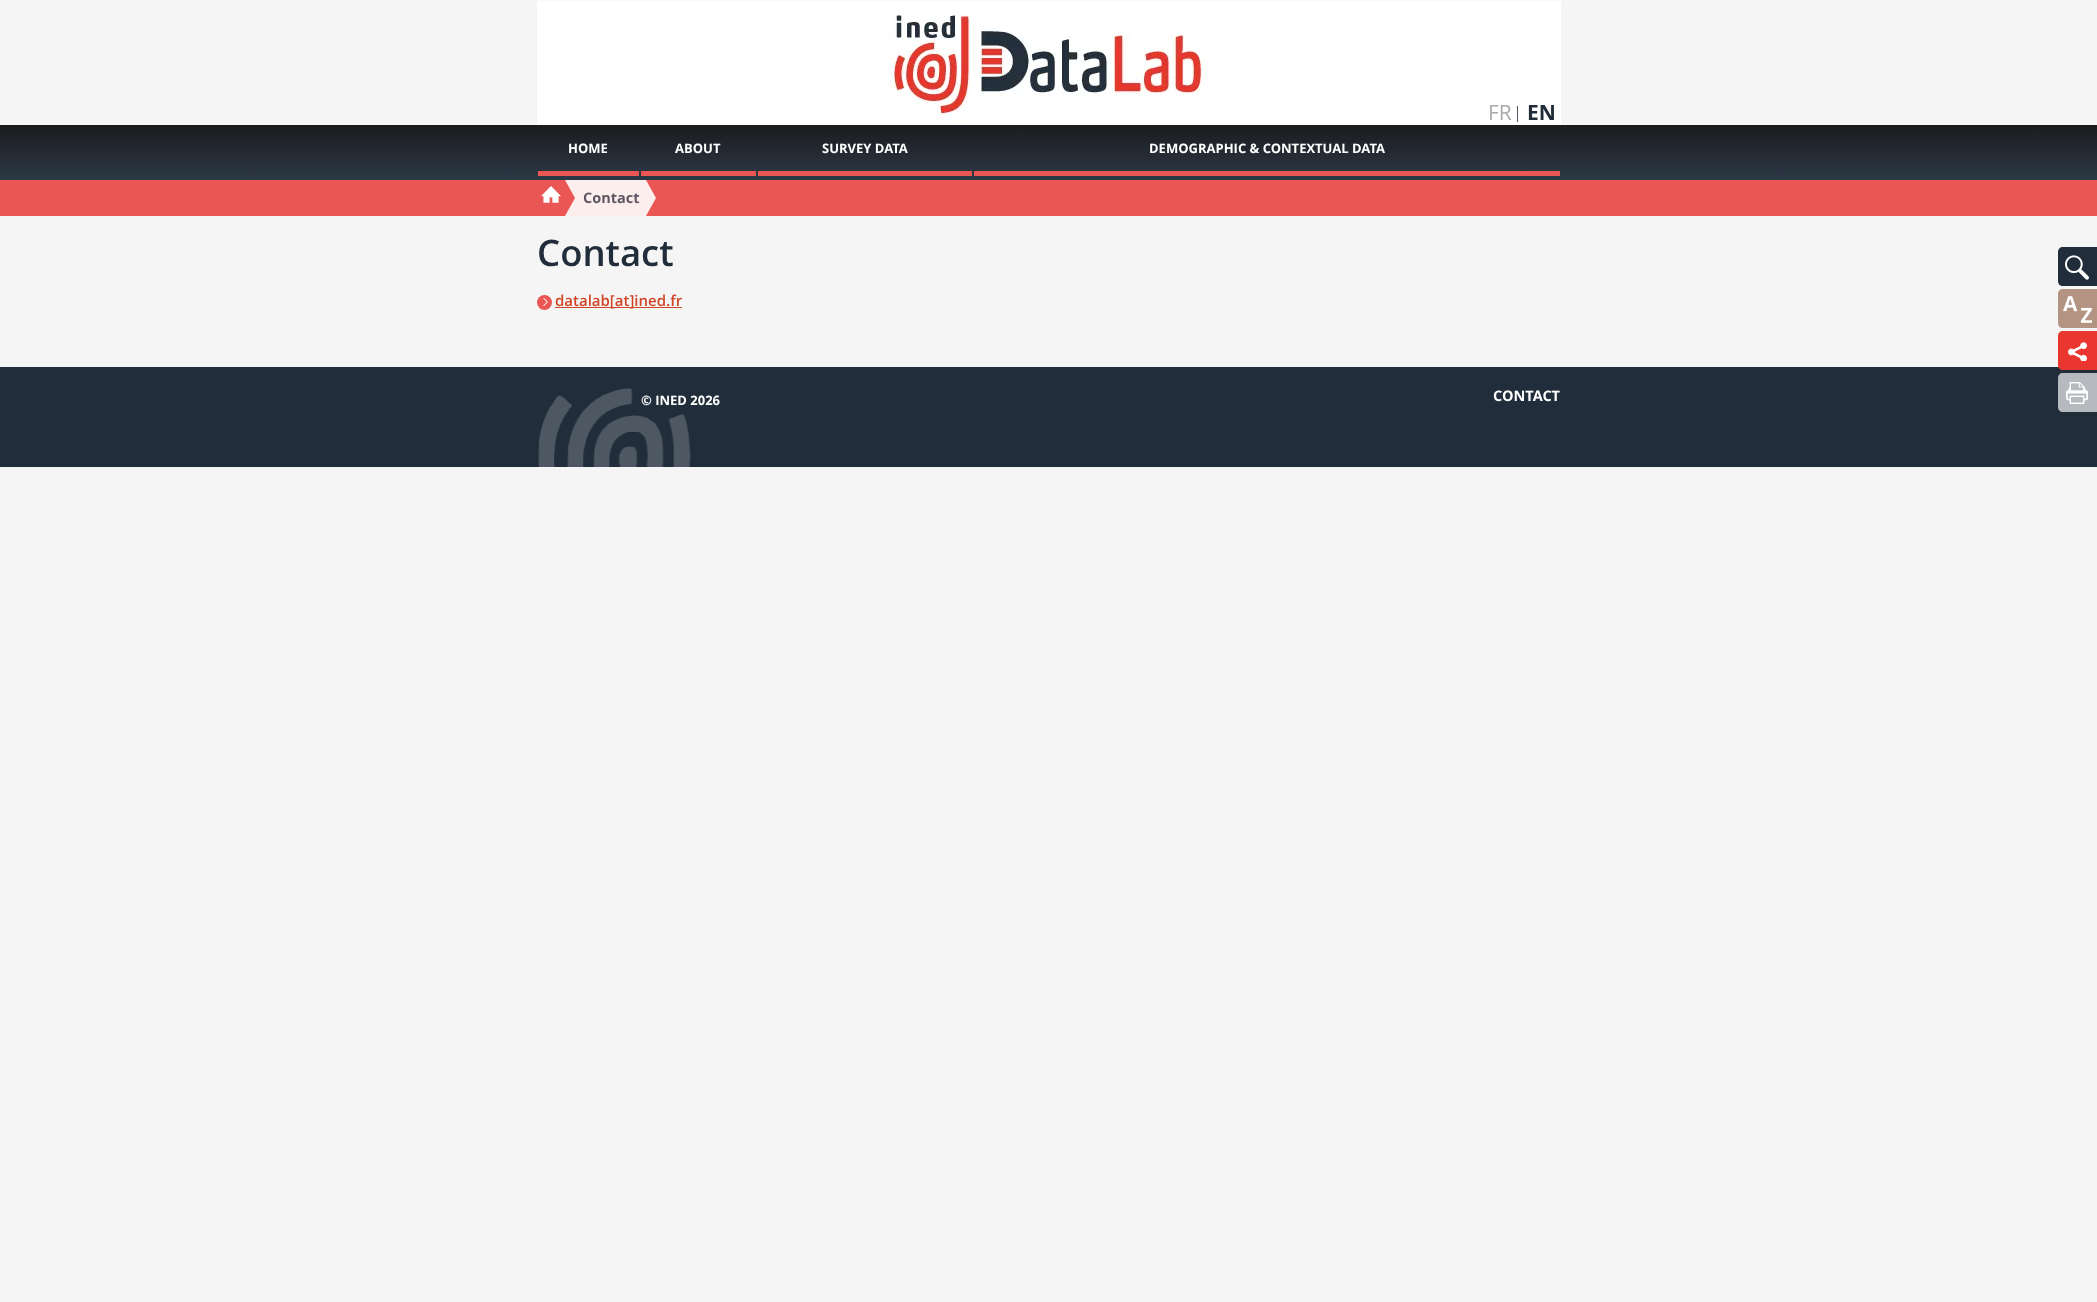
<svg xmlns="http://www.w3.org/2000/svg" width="2097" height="1302">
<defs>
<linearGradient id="g1" gradientUnits="userSpaceOnUse" x1="1049" y1="125" x2="1049" y2="180"><stop offset="0" stop-color="#1b1c1e"/><stop offset="1" stop-color="#2c3846"/></linearGradient>
</defs>
<rect width="100%" height="100%" fill="#f5f5f5"/>
<image x="537" y="0" width="1024" height="125" href="media/1.png"/>
<rect x="1517" y="106" width="1" height="16" fill="#4e5762"/>
<text x="1488" y="120" style="font-family:Open Sans;font-size:21px;fill:#aaa">FR</text>
<text x="1527" y="120" style="font-family:Open Sans;font-size:21px;font-weight:bold;fill:#212d3a">EN</text>
<rect y="125" width="2097" height="55" fill="url(#g1)"/>
<rect x="538" y="171" width="101" height="5" fill="#ea5653"/>
<text x="568" y="153" style="font-family:Open Sans;font-size:13px;font-weight:bold;fill:#fff">HOME</text>
<rect x="641" y="171" width="115" height="5" fill="#ea5653"/>
<text x="675" y="153" style="font-family:Open Sans;font-size:13px;font-weight:bold;fill:#fff">ABOUT</text>
<rect x="758" y="171" width="214" height="5" fill="#ea5653"/>
<text x="822" y="153" style="font-family:Open Sans;font-size:13px;font-weight:bold;fill:#fff">SURVEY DATA</text>
<rect x="974" y="171" width="586" height="5" fill="#ea5653"/>
<text x="1149" y="153" style="font-family:Open Sans;font-size:13px;font-weight:bold;fill:#fff">DEMOGRAPHIC &amp; CONTEXTUAL DATA</text>
<rect y="180" width="2097" height="36" fill="#ea5653"/>
<image x="541" y="186" width="20" height="17" href="media/2.png"/>
<path d="M565 180h10v18zm10 36h-10l10-18z" fill="#fdeeee"/>
<rect x="575" y="180" width="71" height="36" fill="#fdeeee"/>
<text x="583" y="203" style="font-family:Open Sans;font-size:14.5px;font-weight:bold;fill:#5e5761">Contact</text>
<path d="M646 216v-36l10 18z" fill="#fdeeee"/>
<text x="537" y="266" style="font-family:Open Sans;font-size:36.5px;font-weight:600;fill:#212d3a">Contact</text>
<circle cx="544.5" cy="302.5" r="7.5" fill="#ea5653"/>
<image x="543" y="298" width="5" height="8" href="media/3.png"/>
<rect x="555" y="307" width="127" height="1" fill="#d04526"/>
<text x="555" y="306" style="font-family:Open Sans;font-size:15px;font-weight:600;fill:#d04526">datalab[at]ined.fr</text>
<rect y="367" width="2097" height="100" fill="#212d3a"/>
<image x="538" y="388" width="153" height="79" href="media/4.png"/>
<text x="641" y="405" style="font-family:Open Sans;font-size:13px;font-weight:bold;fill:#fff">© INED 2026</text>
<text x="1493" y="401" style="font-family:Open Sans;font-size:14.5px;font-weight:bold;fill:#fff">CONTACT</text>
<path d="M2063 247h34v39h-34c-3 0-5-2-5-5v-29c0-3 2-5 5-5z" fill="#212d3a"/>
<image x="2065" y="255" width="24" height="25" href="media/5.png"/>
<path d="M2063 289h34v39h-34c-3 0-5-2-5-5v-29c0-3 2-5 5-5z" fill="#b39482"/>
<image x="2063" y="296" width="29" height="27" href="media/6.png"/>
<path d="M2063 331h34v39h-34c-3 0-5-2-5-5v-29c0-3 2-5 5-5z" fill="#e9362f"/>
<image x="2068" y="342" width="19" height="19" href="media/7.png"/>
<path d="M2063 373h34v39h-34c-3 0-5-2-5-5v-29c0-3 2-5 5-5z" fill="#b6babe"/>
<image x="2066" y="382" width="22" height="22" href="media/8.png"/>
</svg>
